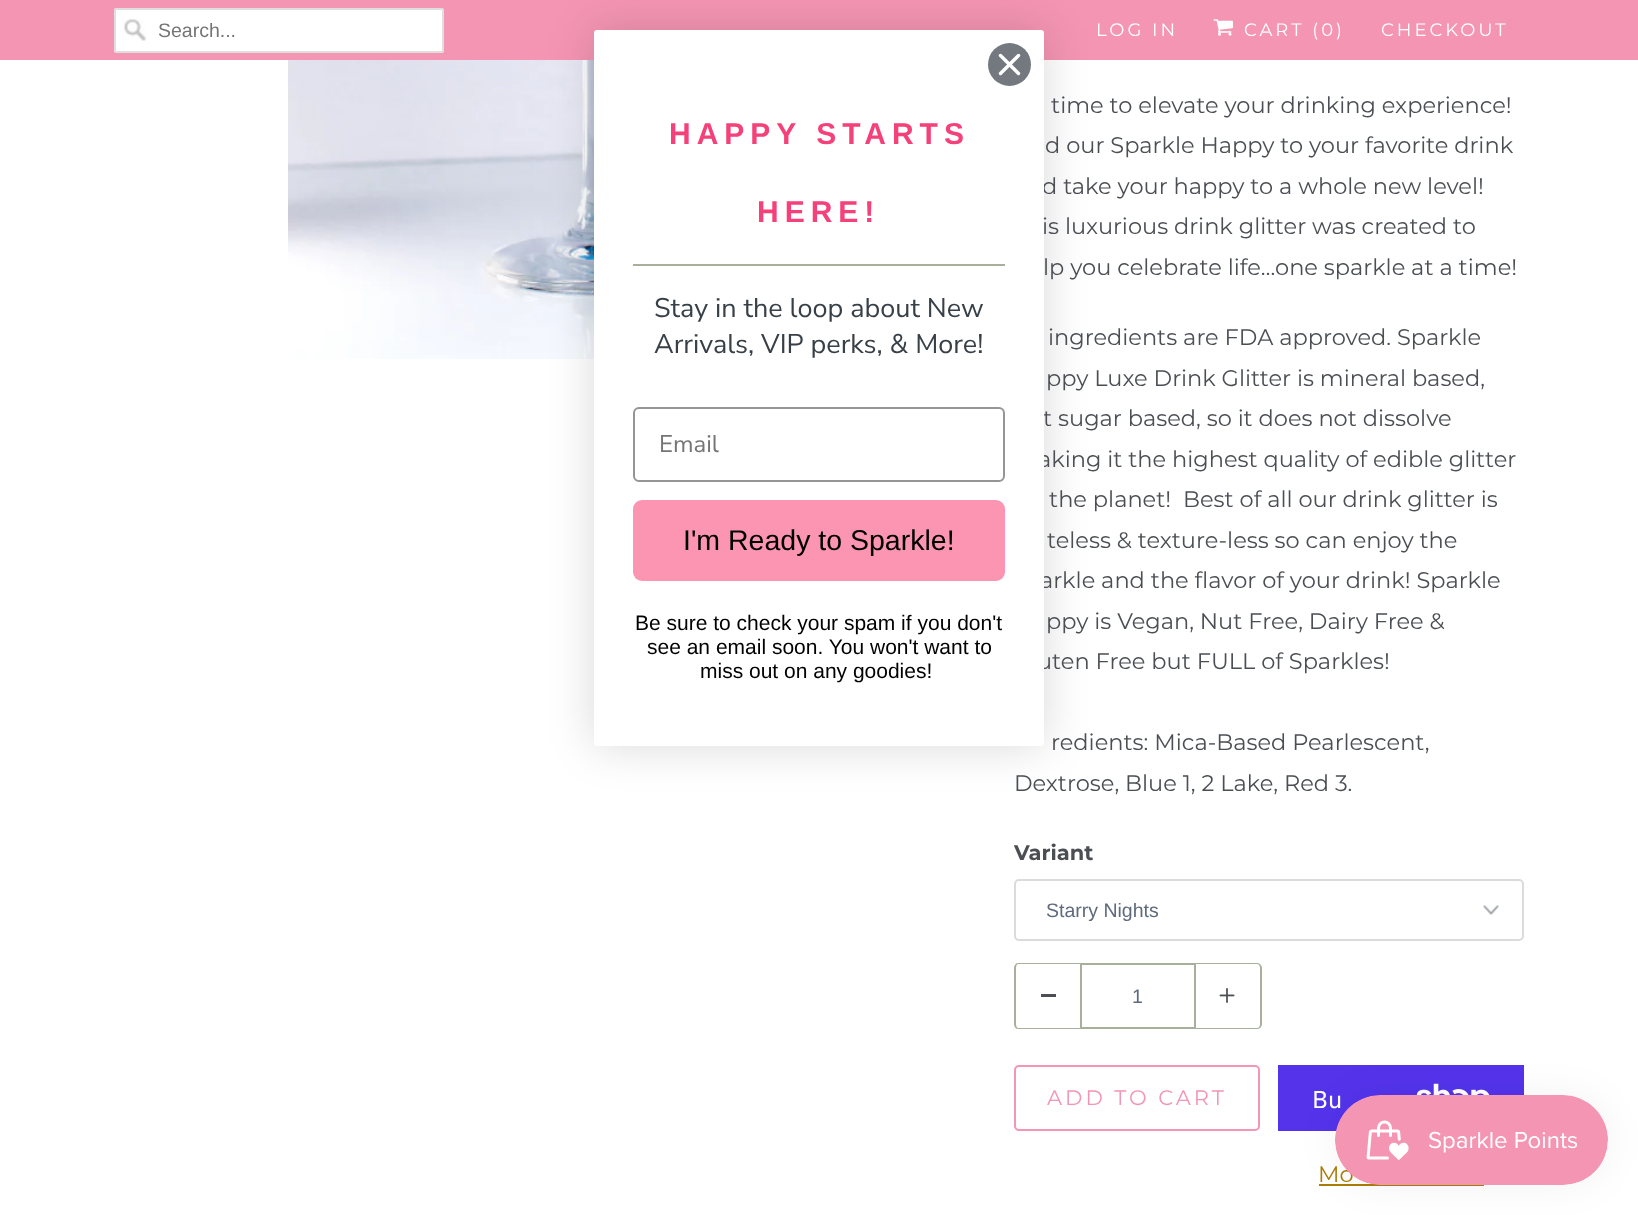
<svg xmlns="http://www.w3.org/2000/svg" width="1638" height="1215">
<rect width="100%" height="100%" fill="#fff"/>
<rect width="1638" height="60" fill="#f495b3"/>
<rect x="114" y="8" width="330" height="45" rx="3" fill="#fff"/>
<image x="124" y="19" width="22" height="22" href="media/1.png"/>
<rect x="115" y="9" width="328" height="43" rx="2" fill="none" stroke="#dfdfdf" stroke-width="2"/>
<text x="158" y="37" style="font-family:Liberation Sans;font-size:19.5px;fill:#757575">Search...</text>
<text x="1096" y="36" style="font-family:Montserrat;font-size:18px;letter-spacing:3px;fill:#fff">LOG IN</text>
<image x="1213" y="19" width="20" height="17" href="media/2.png"/>
<text x="1244" y="36" style="font-family:Montserrat;font-size:18px;letter-spacing:3px;fill:#fff">CART (0)</text>
<text x="1381" y="36" style="font-family:Montserrat;font-size:18px;letter-spacing:3px;fill:#fff">CHECKOUT</text>
<image x="288" y="60" width="306" height="299" href="media/3.png"/>
<rect x="594" y="30" width="450" height="716" fill="#00000026" filter="blur(22.5px)"/>
<text x="1042" y="194" style="font-family:Montserrat;font-size:22.5px;fill:#4b4f54">d take your happy to a whole new level!</text>
<text x="1043" y="426" style="font-family:Montserrat;font-size:22.5px;fill:#4b4f54">t sugar based, so it does not dissolve</text>
<text x="1038" y="467" style="font-family:Montserrat;font-size:22.5px;fill:#4b4f54">aking it the highest quality of edible glitter</text>
<text x="1040" y="588" style="font-family:Montserrat;font-size:22.5px;fill:#4b4f54">arkle and the flavor of your drink! Sparkle</text>
<text x="1037" y="669" style="font-family:Montserrat;font-size:22.5px;fill:#4b4f54">uten Free but FULL of Sparkles!</text>
<rect x="594" y="30" width="450" height="716" rx="3" fill="#fff"/>
<circle cx="1009.5" cy="64.5" r="21.5" fill="#73797e"/>
<path d="M1000.5 55.5l18 18m-18 0l18-18z" fill="none" stroke="#fff" stroke-width="3.4" stroke-linecap="round" stroke-linejoin="round"/>
<rect x="633" y="264" width="372" height="2" fill="#a8b09b"/>
<text x="669" y="144" style="font-family:Liberation Sans;font-size:30px;font-weight:bold;letter-spacing:6px;fill:#f5417a">HAPPY STARTS</text>
<text x="757" y="222" style="font-family:Liberation Sans;font-size:30px;font-weight:bold;letter-spacing:6px;fill:#f5417a">HERE!</text>
<text x="654" y="317" style="font-family:Nunito Sans;font-size:27px;fill:#373f47">Stay in the loop about New</text>
<text x="654" y="353" style="font-family:Nunito Sans;font-size:27px;fill:#373f47">Arrivals, VIP perks, &amp; More!</text>
<rect x="634" y="408" width="370" height="73" rx="5" fill="none" stroke="#949596" stroke-width="2"/>
<text x="659" y="452" style="font-family:Nunito Sans;font-size:24px;fill:#757575">Email</text>
<rect x="633" y="500" width="372" height="81" rx="9" fill="#fb95b1"/>
<text x="683" y="550" style="font-family:Liberation Sans;font-size:28.5px;fill:#000">I'm Ready to Sparkle!</text>
<text x="635" y="630" style="font-family:Liberation Sans;font-size:21px;fill:#000">Be sure to check your spam if you don't</text>
<text x="647" y="654" style="font-family:Liberation Sans;font-size:21px;fill:#000">see an email soon. You won't want to</text>
<text x="700" y="678" style="font-family:Liberation Sans;font-size:21px;fill:#000">miss out on any goodies!</text>
<text x="1051" y="113" style="font-family:Montserrat;font-size:22.5px;fill:#4b4f54">time to elevate your drinking experience!</text>
<text x="1045" y="153" style="font-family:Montserrat;font-size:22.5px;fill:#4b4f54">d our Sparkle Happy to your favorite drink</text>
<text x="1042" y="234" style="font-family:Montserrat;font-size:22.5px;fill:#4b4f54">is luxurious drink glitter was created to</text>
<text x="1043" y="275" style="font-family:Montserrat;font-size:22.5px;fill:#4b4f54">lp you celebrate life…one sparkle at a time!</text>
<text x="1048" y="345" style="font-family:Montserrat;font-size:22.5px;fill:#4b4f54">ingredients are FDA approved. Sparkle</text>
<text x="1046" y="386" style="font-family:Montserrat;font-size:22.5px;fill:#4b4f54">ppy Luxe Drink Glitter is mineral based,</text>
<text x="1049" y="507" style="font-family:Montserrat;font-size:22.5px;fill:#4b4f54" xml:space="preserve">the planet!  Best of all our drink glitter is</text>
<text x="1047" y="548" style="font-family:Montserrat;font-size:22.5px;fill:#4b4f54">teless &amp; texture-less so can enjoy the</text>
<text x="1046" y="629" style="font-family:Montserrat;font-size:22.5px;fill:#4b4f54">ppy is Vegan, Nut Free, Dairy Free &amp;</text>
<text x="1051" y="750" style="font-family:Montserrat;font-size:22.5px;fill:#4b4f54">redients: Mica-Based Pearlescent,</text>
<text x="1014" y="791" style="font-family:Montserrat;font-size:22.5px;fill:#4b4f54">Dextrose, Blue 1, 2 Lake, Red 3.</text>
<text x="1014" y="860" style="font-family:Montserrat;font-size:21px;font-weight:bold;fill:#4b4f54">Variant</text>
<image x="1483" y="905" width="16" height="10" href="media/4.png"/>
<rect x="1015" y="880" width="508" height="60" rx="4" fill="none" stroke="#d9dbdc" stroke-width="2"/>
<text x="1046" y="917" style="font-family:Liberation Sans;font-size:19.5px;fill:#5f6a7d">Starry Nights</text>
<path d="M1018 963h62v66h-62c-2 0-4-2-4-5v-56c0-3 2-5 4-5zm0 1h62v64h-62c-1 0-2-2-2-4v-56c0-2 1-4 2-4z" fill="#a8b09b" fill-rule="evenodd"/>
<rect x="1041" y="994" width="15" height="3" fill="#4b4f54"/>
<rect x="1081" y="964" width="114" height="64" fill="none" stroke="#a8b09b" stroke-width="2"/>
<text x="1132" y="1003" style="font-family:Liberation Sans;font-size:19.5px;fill:#5f6a7d">1</text>
<path d="M1196 963h61c2 0 5 2 5 5v56c0 3-3 5-5 5h-61zm0 1h61c2 0 3 2 3 4v56c0 2-1 4-3 4h-61z" fill="#a8b09b" fill-rule="evenodd"/>
<image x="1219" y="988" width="16" height="15" href="media/5.png"/>
<rect x="1015" y="1066" width="244" height="64" rx="4" fill="none" stroke="#f495b3" stroke-width="2"/>
<text x="1047" y="1105" style="font-family:Montserrat;font-size:21px;letter-spacing:3px;fill:#f495b3">ADD TO CART</text>
<rect x="1278" y="1065" width="246" height="66" fill="#5433eb"/>
<image x="1416" y="1083" width="74" height="12" href="media/6.png"/>
<text x="1312" y="1108" style="font-family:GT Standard;font-size:24px;fill:#fff">Bu</text>
<text x="1318" y="1182" style="font-family:Montserrat;font-size:22.5px;fill:#ab7d07">Mo</text>
<rect x="1319" y="1184" width="165" height="2" fill="#ab7d07"/>
<rect x="1335" y="1095" width="273" height="90" rx="45" fill="#0000000d" filter="blur(19px)"/>
<image x="1335" y="1095" width="273" height="90" href="media/7.png"/>
</svg>
